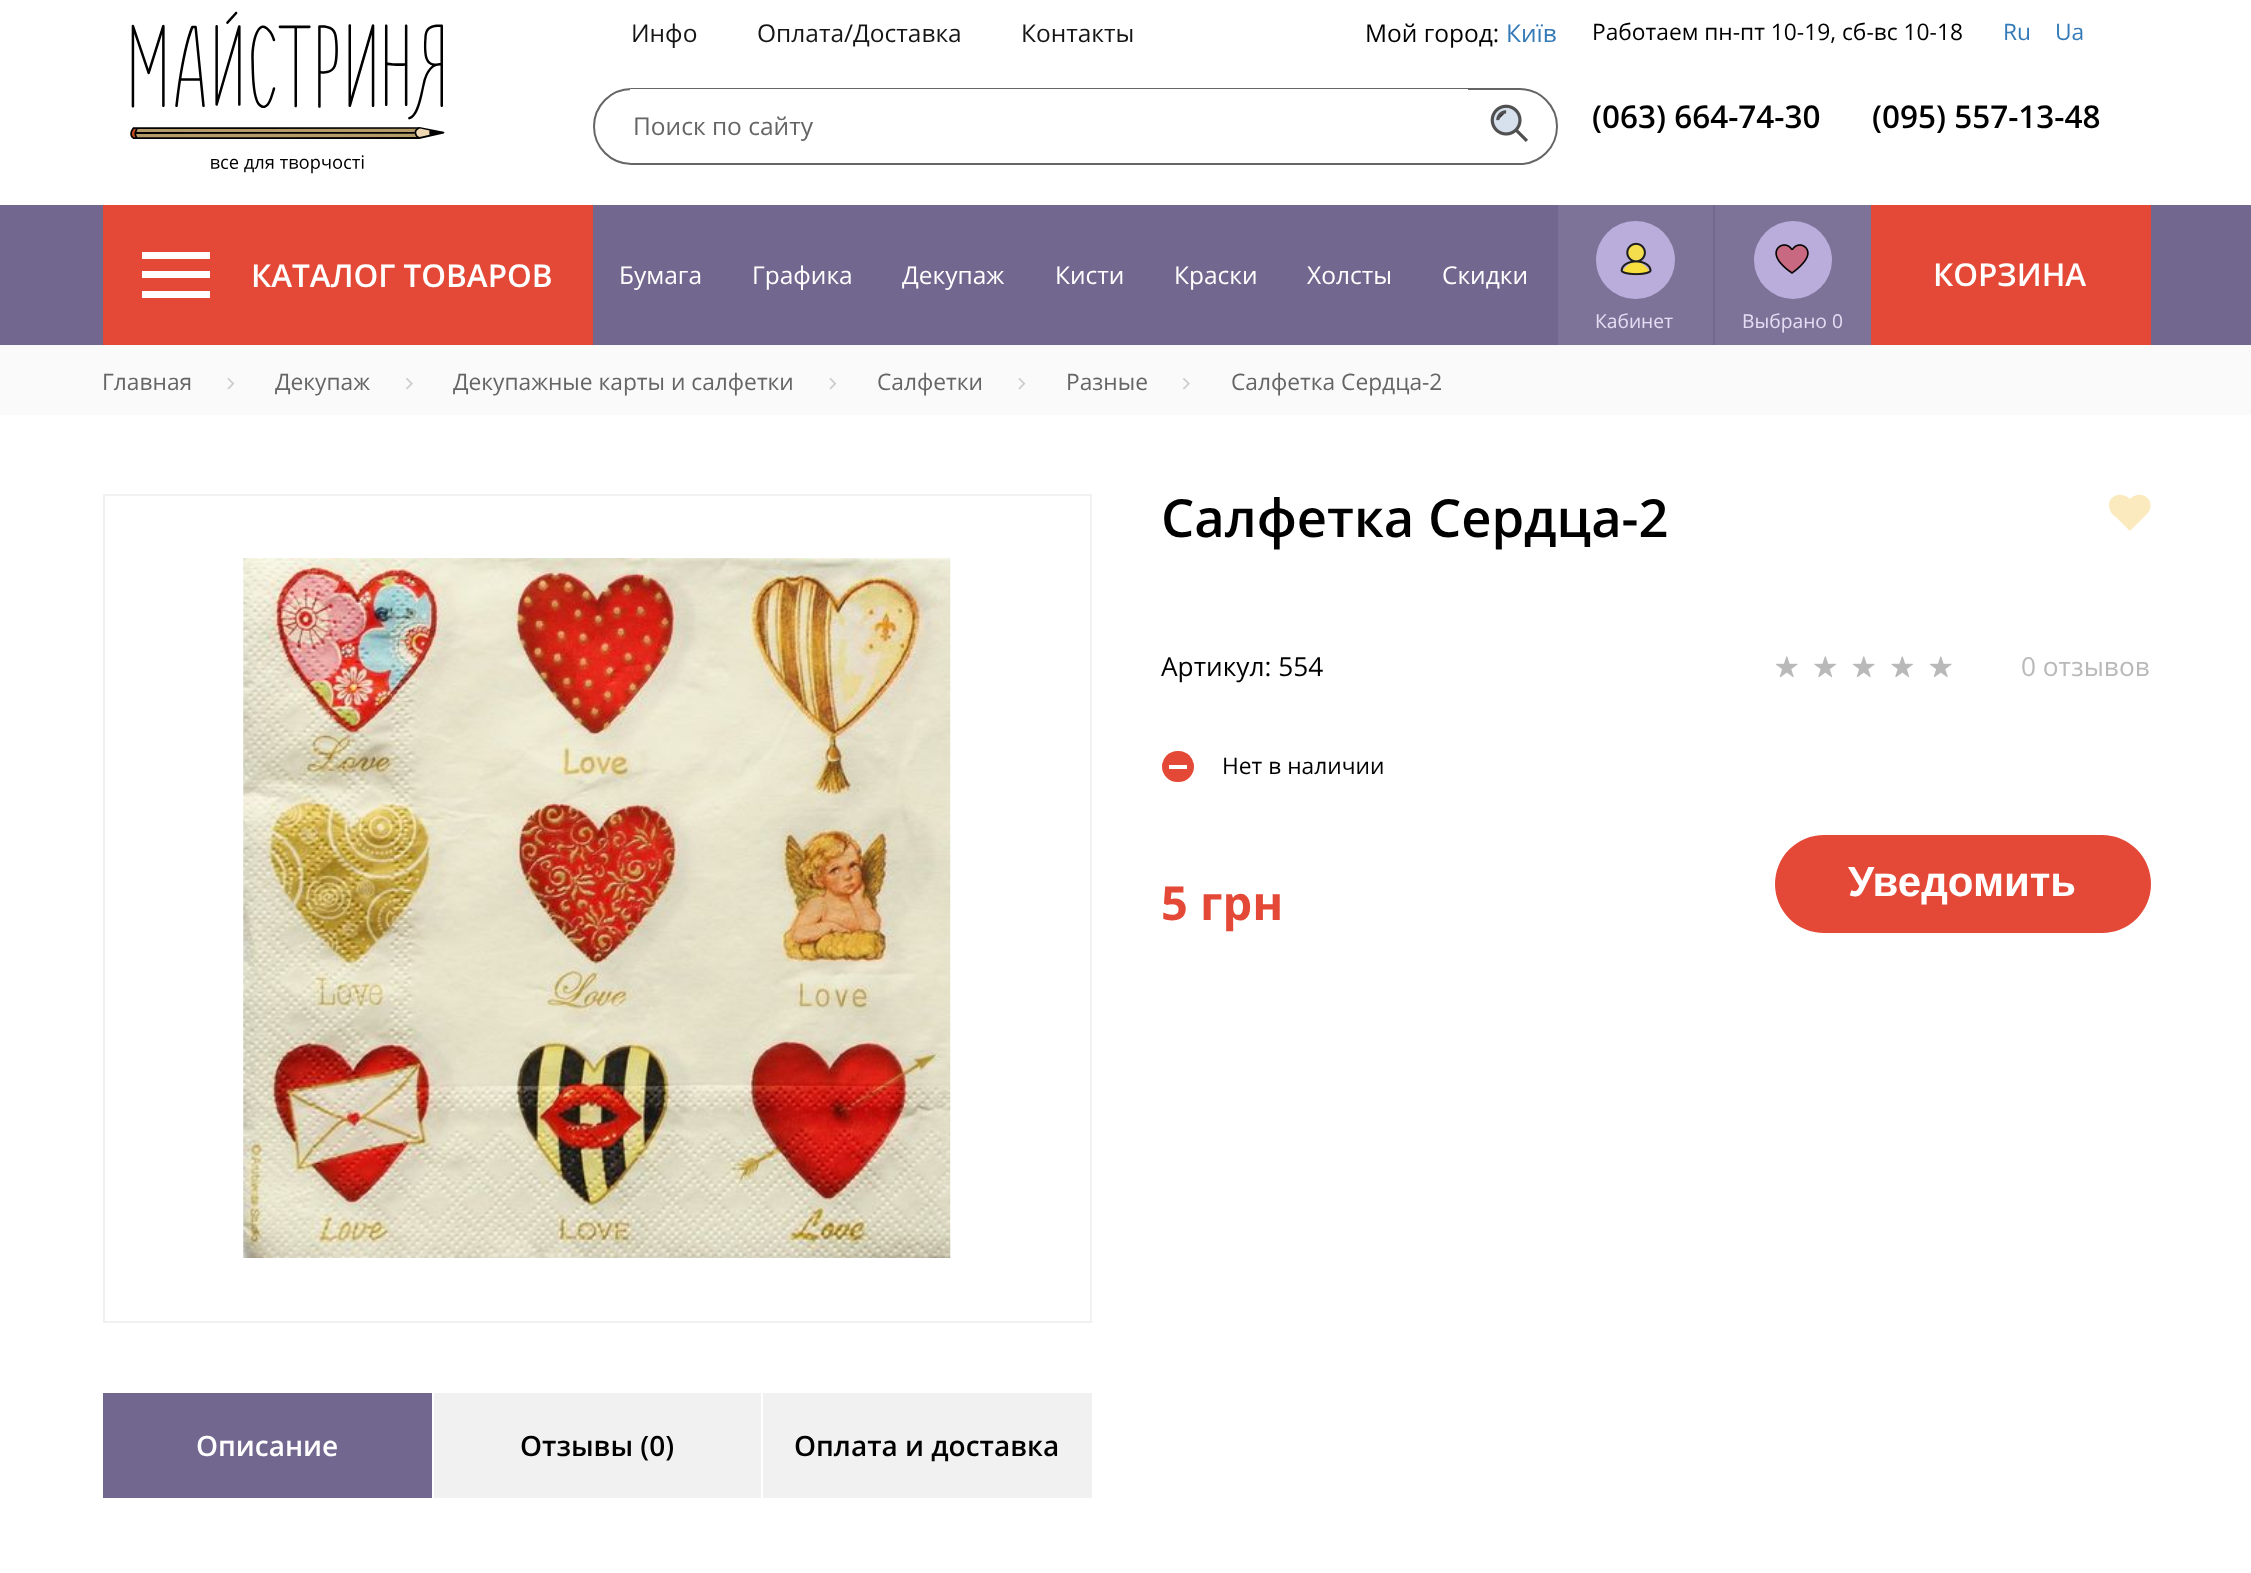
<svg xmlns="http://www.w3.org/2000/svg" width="2251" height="1573">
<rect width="100%" height="100%" fill="#fff"/>
<image x="130" y="11" width="315" height="163" href="media/1.png"/>
<text x="631" y="42" style="font-family:Open Sans;font-size:24.5px;fill:#161616">Инфо</text>
<text x="757" y="42" style="font-family:Open Sans;font-size:24.5px;fill:#161616">Оплата/Доставка</text>
<text x="1021" y="42" style="font-family:Open Sans;font-size:24.5px;fill:#161616">Контакты</text>
<text x="1365" y="42" style="font-family:Open Sans;font-size:24.5px;fill:#000">Мой город:</text>
<text x="1506" y="42" style="font-family:Open Sans;font-size:24.5px;fill:#337ab7">Київ</text>
<rect x="594" y="89" width="963" height="75" rx="37.5" fill="none" stroke="#656565" stroke-width="2"/>
<rect x="630" y="89" width="838" height="74" fill="#fff"/>
<text x="633" y="135" style="font-family:Open Sans;font-size:24.5px;fill:#656565">Поиск по сайту</text>
<image x="1490" y="104" width="38" height="38" href="media/2.png"/>
<text x="1592" y="40" style="font-family:Open Sans;font-size:22.75px;fill:#000">Работаем пн-пт 10-19, сб-вс 10-18</text>
<text x="2003" y="40" style="font-family:Open Sans;font-size:22.75px;fill:#337ab7">Ru</text>
<text x="2055" y="40" style="font-family:Open Sans;font-size:22.75px;fill:#337ab7">Ua</text>
<text x="1592" y="128" style="font-family:Open Sans;font-size:31.5px;font-weight:600;fill:#000">(063) 664-74-30</text>
<text x="1872" y="128" style="font-family:Open Sans;font-size:31.5px;font-weight:600;fill:#000">(095) 557-13-48</text>
<rect y="205" width="2251" height="140" fill="#72678f"/>
<rect x="103" y="205" width="490" height="140" fill="#e44937"/>
<rect x="142" y="252" width="68" height="7" fill="#fff"/>
<rect x="142" y="291" width="68" height="7" fill="#fff"/>
<rect x="142" y="271" width="68" height="7" fill="#fff"/>
<text x="251" y="287" style="font-family:Open Sans;font-size:31.5px;font-weight:600;fill:#fff">КАТАЛОГ ТОВАРОВ</text>
<text x="619" y="284" style="font-family:Open Sans;font-size:24.5px;fill:#fff">Бумага</text>
<text x="752" y="284" style="font-family:Open Sans;font-size:24.5px;fill:#fff">Графика</text>
<text x="902" y="284" style="font-family:Open Sans;font-size:24.5px;fill:#fff">Декупаж</text>
<text x="1055" y="284" style="font-family:Open Sans;font-size:24.5px;fill:#fff">Кисти</text>
<text x="1174" y="284" style="font-family:Open Sans;font-size:24.5px;fill:#fff">Краски</text>
<text x="1307" y="284" style="font-family:Open Sans;font-size:24.5px;fill:#fff">Холсты</text>
<text x="1442" y="284" style="font-family:Open Sans;font-size:24.5px;fill:#fff">Скидки</text>
<rect x="1871" y="205" width="280" height="140" fill="#e44937"/>
<text x="1933" y="286" style="font-family:Open Sans;font-size:31.5px;font-weight:600;fill:#fff">КОРЗИНА</text>
<rect x="1558" y="205" width="155" height="140" fill="#7d7398"/>
<rect x="1596" y="221" width="79" height="78" rx="39" fill="#baaddc"/>
<image x="1620" y="242" width="32" height="34" href="media/3.png"/>
<text x="1595" y="328" style="font-family:Open Sans;font-size:19.25px;fill:#e4def5">Кабинет</text>
<rect x="1715" y="205" width="156" height="140" fill="#7d7398"/>
<circle cx="1793" cy="260" r="39" fill="#baaddc"/>
<image x="1775" y="244" width="34" height="30" href="media/4.png"/>
<text x="1742" y="328" style="font-family:Open Sans;font-size:19.25px;fill:#e4def5">Выбрано 0</text>
<rect y="345" width="2251" height="70" fill="#fafafa"/>
<text x="102" y="390" style="font-family:Open Sans;font-size:22.75px;fill:#656565">Главная</text>
<image x="227" y="378" width="8" height="12" href="media/5.png"/>
<text x="275" y="390" style="font-family:Open Sans;font-size:22.75px;fill:#656565">Декупаж</text>
<image x="406" y="378" width="7" height="12" href="media/6.png"/>
<text x="453" y="390" style="font-family:Open Sans;font-size:22.75px;fill:#656565">Декупажные карты и салфетки</text>
<image x="829" y="378" width="8" height="12" href="media/5.png"/>
<text x="877" y="390" style="font-family:Open Sans;font-size:22.75px;fill:#656565">Салфетки</text>
<image x="1018" y="378" width="8" height="12" href="media/5.png"/>
<text x="1066" y="390" style="font-family:Open Sans;font-size:22.75px;fill:#656565">Разные</text>
<image x="1183" y="378" width="7" height="12" href="media/6.png"/>
<text x="1231" y="390" style="font-family:Open Sans;font-size:22.75px;fill:#656565">Салфетка Сердца-2</text>
<text x="1161" y="537" style="font-family:Open Sans;font-size:52.5px;font-weight:600;fill:#000">Салфетка Сердца-2</text>
<path d="M2146 515c13-12-4-28-16-16c-11-10-25-1-20 11c1 4 6 7 9 10l11 11z" fill="#faeabd"/>
<text x="1161" y="676" style="font-family:Open Sans;font-size:26.25px;fill:#000">Артикул: 554</text>
<image x="1775" y="656" width="23" height="22" href="media/7.png"/>
<image x="1814" y="656" width="23" height="22" href="media/8.png"/>
<image x="1852" y="656" width="23" height="22" href="media/7.png"/>
<image x="1891" y="656" width="23" height="22" href="media/8.png"/>
<image x="1929" y="656" width="23" height="22" href="media/7.png"/>
<text x="2021" y="676" style="font-family:Open Sans;font-size:26.25px;fill:#b9b9b9">0 отзывов</text>
<rect x="1162" y="751" width="32" height="31" rx="15.5" fill="#e44937"/>
<text x="1222" y="774" style="font-family:Open Sans;font-size:22.75px;fill:#000">Нет в наличии</text>
<rect x="1169" y="765" width="18" height="4" fill="#fff"/>
<text x="1161" y="920" style="font-family:Open Sans;font-size:47px;font-weight:bold;fill:#e44937">5 грн</text>
<rect x="1775" y="835" width="376" height="98" rx="49" fill="#e44937"/>
<text x="1848" y="896" style="font-family:Liberation Sans;font-size:42px;font-weight:bold;fill:#fff">Уведомить</text>
<rect x="104" y="495" width="987" height="827" fill="none" stroke="#f1f1f1" stroke-width="2"/>
<image x="243" y="558" width="708" height="700" href="media/9.png"/>
<rect x="103" y="1393" width="329" height="105" fill="#72678f"/>
<text x="196" y="1456" style="font-family:Open Sans;font-size:28px;font-weight:600;fill:#fff">Описание</text>
<rect x="434" y="1393" width="327" height="105" fill="#f1f1f1"/>
<text x="520" y="1456" style="font-family:Open Sans;font-size:28px;font-weight:600;fill:#000">Отзывы (0)</text>
<rect x="763" y="1393" width="329" height="105" fill="#f1f1f1"/>
<text x="794" y="1456" style="font-family:Open Sans;font-size:28px;font-weight:600;fill:#000">Оплата и доставка</text>
</svg>
